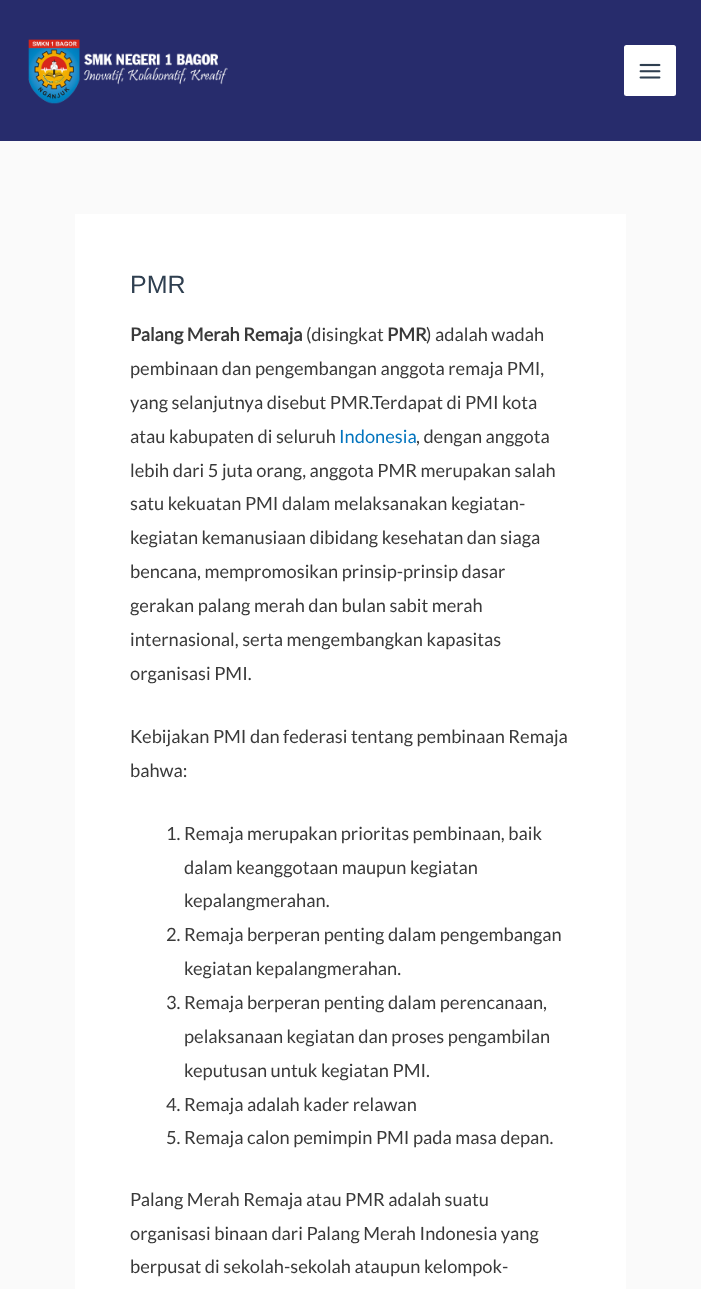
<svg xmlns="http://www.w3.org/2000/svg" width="701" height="1289">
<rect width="100%" height="100%" fill="#fafafa"/>
<rect width="701" height="141" fill="#272c6c"/>
<image x="28" y="39" width="200" height="65" href="media/1.png"/>
<rect x="624" y="45" width="52" height="51" rx="2.5" fill="#fff"/>
<image x="639" y="63" width="22" height="16" href="media/2.png"/>
<rect x="75" y="214" width="551" height="1075" fill="#fff"/>
<text x="130" y="293" style="font-family:Liberation Sans;font-size:25px;fill:#2f3f50">PMR</text>
<text x="130" y="341" style="font-family:Lato;font-size:18.25px;font-weight:bold;fill:#3a3a3a">Palang Merah Remaja</text>
<text x="306" y="341" style="font-family:Lato;font-size:18.25px;fill:#3a3a3a">(disingkat</text>
<text x="387" y="341" style="font-family:Lato;font-size:18.25px;font-weight:bold;fill:#3a3a3a">PMR</text>
<text x="426" y="341" style="font-family:Lato;font-size:18.25px;fill:#3a3a3a">) adalah wadah</text>
<text x="130" y="375" style="font-family:Lato;font-size:18.25px;fill:#3a3a3a">pembinaan dan pengembangan anggota remaja PMI,</text>
<text x="130" y="409" style="font-family:Lato;font-size:18.25px;fill:#3a3a3a">yang selanjutnya disebut PMR.Terdapat di PMI kota</text>
<text x="130" y="443" style="font-family:Lato;font-size:18.25px;fill:#3a3a3a">atau kabupaten di seluruh</text>
<text x="339" y="443" style="font-family:Lato;font-size:18.25px;fill:#0274be">Indonesia</text>
<text x="416" y="443" style="font-family:Lato;font-size:18.25px;fill:#3a3a3a">, dengan anggota</text>
<text x="130" y="477" style="font-family:Lato;font-size:18.25px;fill:#3a3a3a">lebih dari 5 juta orang, anggota PMR merupakan salah</text>
<text x="130" y="510" style="font-family:Lato;font-size:18.25px;fill:#3a3a3a">satu kekuatan PMI dalam melaksanakan kegiatan-</text>
<text x="130" y="544" style="font-family:Lato;font-size:18.25px;fill:#3a3a3a">kegiatan kemanusiaan dibidang kesehatan dan siaga</text>
<text x="130" y="578" style="font-family:Lato;font-size:18.25px;fill:#3a3a3a">bencana, mempromosikan prinsip-prinsip dasar</text>
<text x="130" y="612" style="font-family:Lato;font-size:18.25px;fill:#3a3a3a">gerakan palang merah dan bulan sabit merah</text>
<text x="130" y="646" style="font-family:Lato;font-size:18.25px;fill:#3a3a3a">internasional, serta mengembangkan kapasitas</text>
<text x="130" y="680" style="font-family:Lato;font-size:18.25px;fill:#3a3a3a">organisasi PMI.</text>
<text x="130" y="743" style="font-family:Lato;font-size:18.25px;fill:#3a3a3a">Kebijakan PMI dan federasi tentang pembinaan Remaja</text>
<text x="130" y="777" style="font-family:Lato;font-size:18.25px;fill:#3a3a3a">bahwa:</text>
<text x="166" y="840" style="font-family:Lato;font-size:18.25px;fill:#3a3a3a">1. Remaja merupakan prioritas pembinaan, baik</text>
<text x="184" y="874" style="font-family:Lato;font-size:18.25px;fill:#3a3a3a">dalam keanggotaan maupun kegiatan</text>
<text x="184" y="907" style="font-family:Lato;font-size:18.25px;fill:#3a3a3a">kepalangmerahan.</text>
<text x="166" y="941" style="font-family:Lato;font-size:18.25px;fill:#3a3a3a">2. Remaja berperan penting dalam pengembangan</text>
<text x="184" y="975" style="font-family:Lato;font-size:18.25px;fill:#3a3a3a">kegiatan kepalangmerahan.</text>
<text x="166" y="1009" style="font-family:Lato;font-size:18.25px;fill:#3a3a3a">3. Remaja berperan penting dalam perencanaan,</text>
<text x="184" y="1043" style="font-family:Lato;font-size:18.25px;fill:#3a3a3a">pelaksanaan kegiatan dan proses pengambilan</text>
<text x="184" y="1077" style="font-family:Lato;font-size:18.25px;fill:#3a3a3a">keputusan untuk kegiatan PMI.</text>
<text x="166" y="1111" style="font-family:Lato;font-size:18.25px;fill:#3a3a3a">4. Remaja adalah kader relawan</text>
<text x="166" y="1144" style="font-family:Lato;font-size:18.25px;fill:#3a3a3a">5. Remaja calon pemimpin PMI pada masa depan.</text>
<text x="130" y="1206" style="font-family:Lato;font-size:18.25px;fill:#3a3a3a">Palang Merah Remaja atau PMR adalah suatu</text>
<text x="130" y="1240" style="font-family:Lato;font-size:18.25px;fill:#3a3a3a">organisasi binaan dari Palang Merah Indonesia yang</text>
<text x="130" y="1273" style="font-family:Lato;font-size:18.25px;fill:#3a3a3a">berpusat di sekolah-sekolah ataupun kelompok-</text>
</svg>
